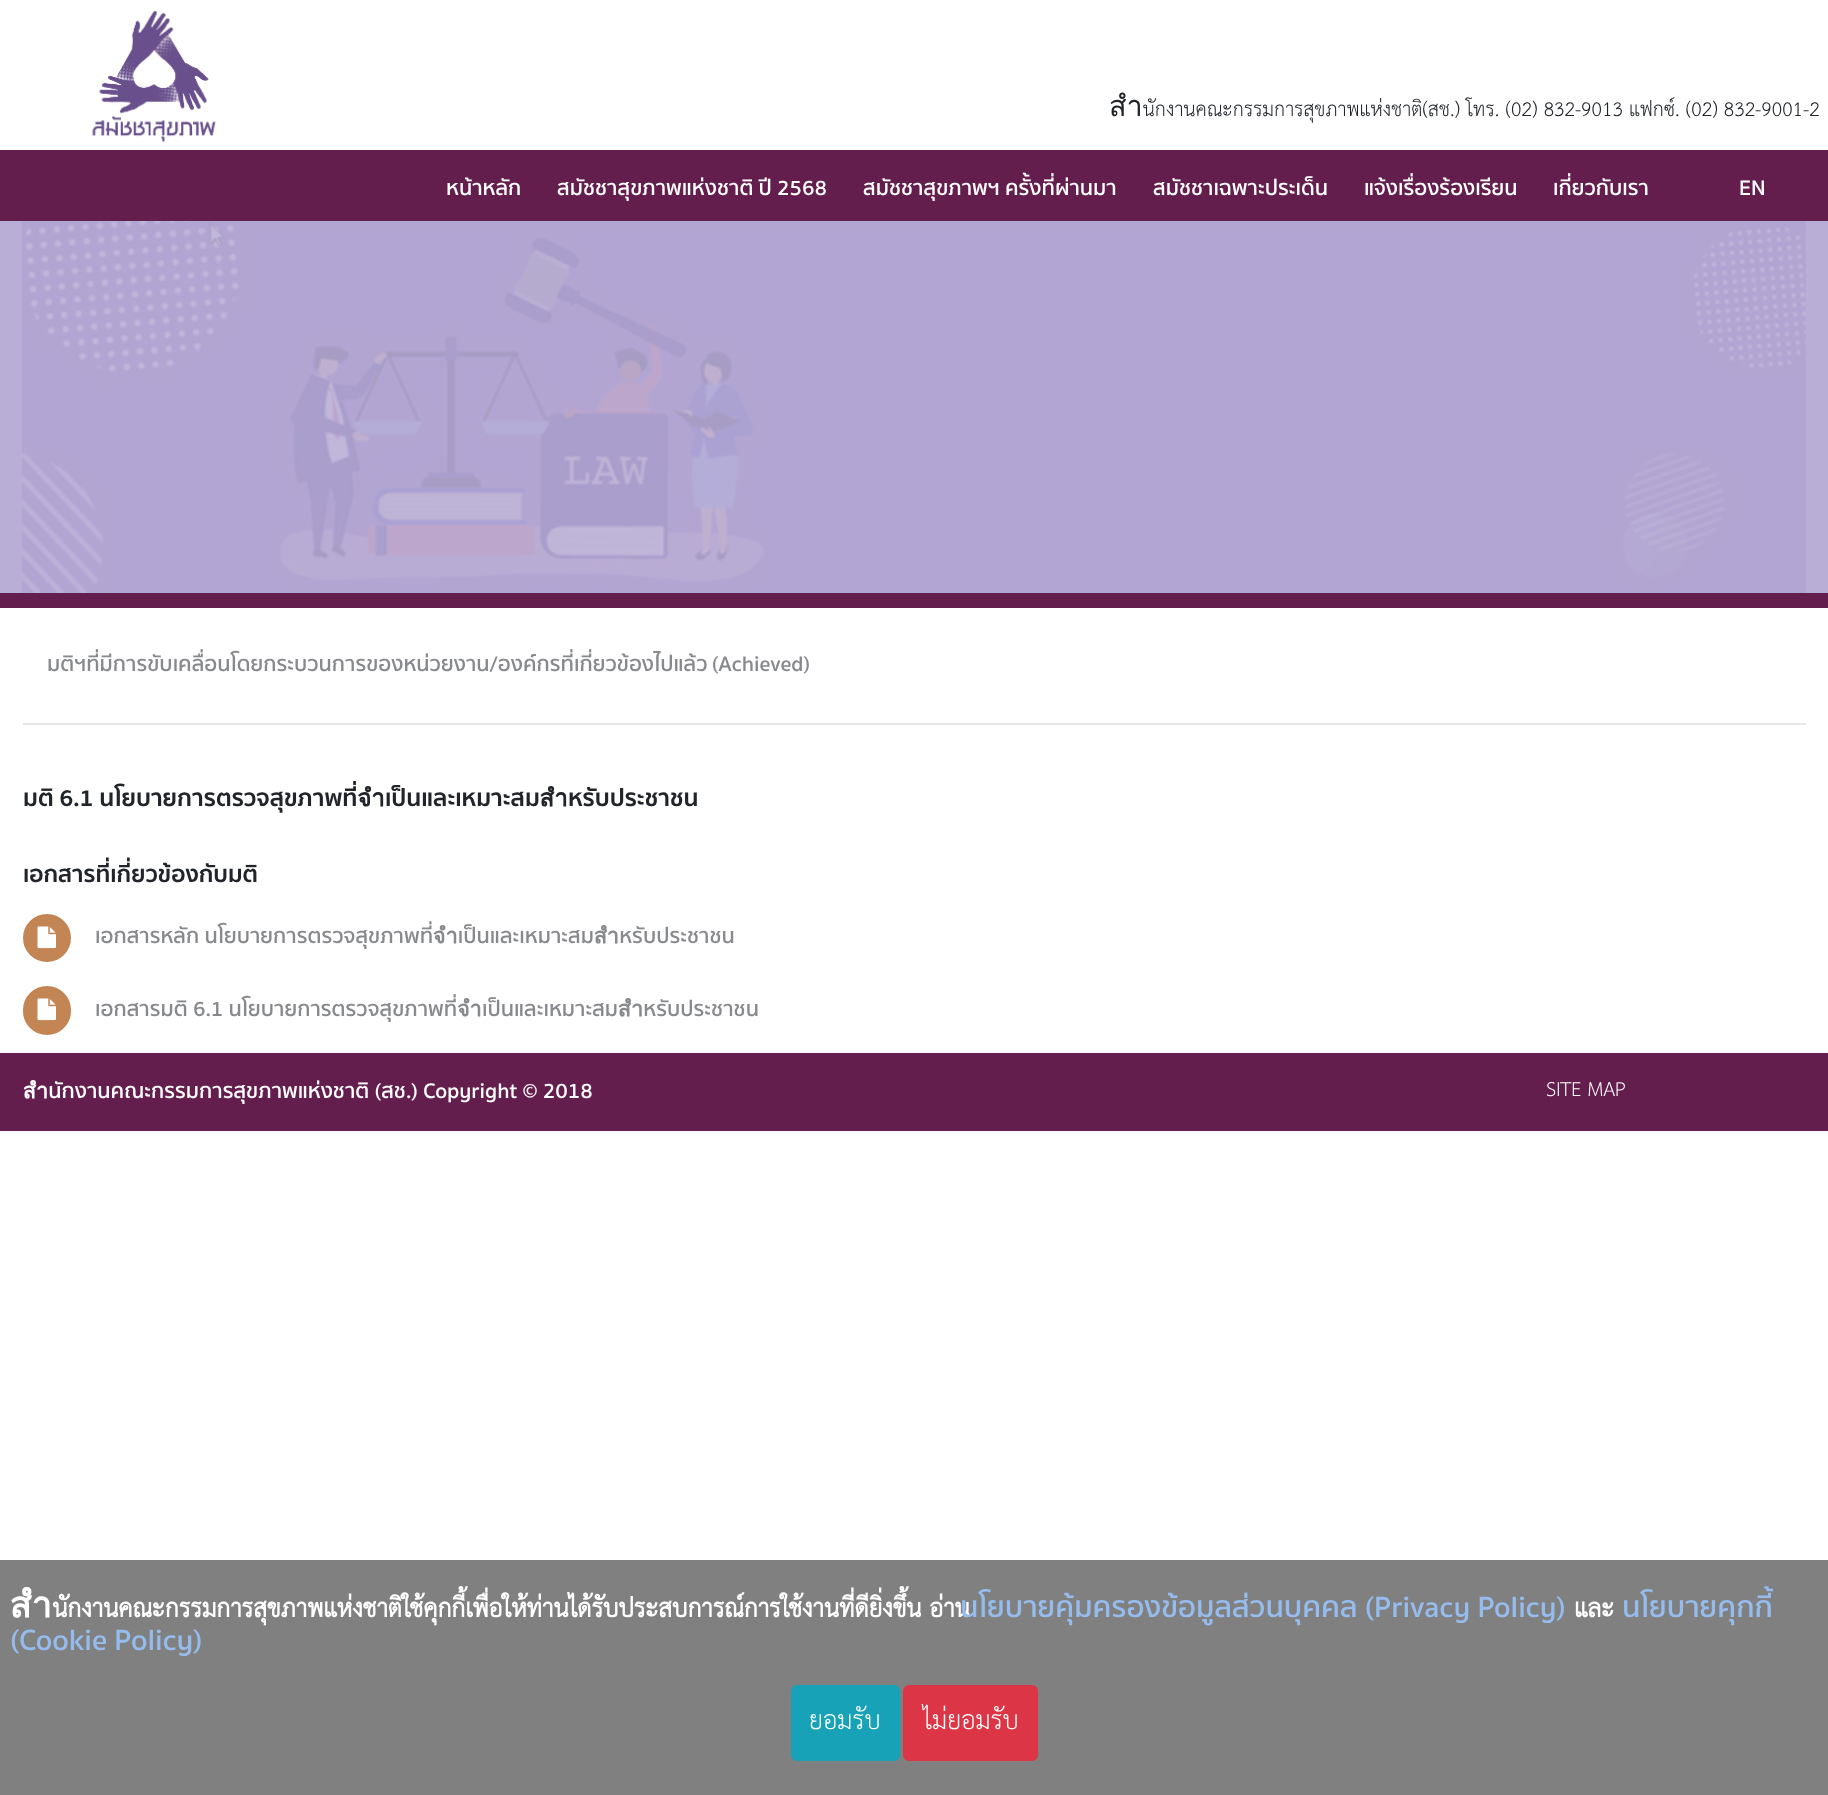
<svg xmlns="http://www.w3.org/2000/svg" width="1828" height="1795">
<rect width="100%" height="100%" fill="#fff"/>
<image x="92" y="10" width="124" height="133" href="media/1.png"/>
<text x="1109" y="116" style="font-family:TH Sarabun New;font-size:28.8px;fill:#212529">สำนักงานคณะกรรมการสุขภาพแห่งชาติ(สช.) โทร. (02) 832-9013 แฟกซ์. (02) 832-9001-2</text>
<rect y="150" width="1828" height="71" fill="#641e4d"/>
<text x="446" y="195" style="font-family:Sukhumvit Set;font-size:21.6px;font-weight:600;fill:#fff">หน้าหลัก</text>
<text x="557" y="195" style="font-family:Sukhumvit Set;font-size:21.6px;font-weight:600;fill:#fff">สมัชชาสุขภาพแห่งชาติ ปี 2568</text>
<text x="863" y="195" style="font-family:Sukhumvit Set;font-size:21.6px;font-weight:600;fill:#fff">สมัชชาสุขภาพฯ ครั้งที่ผ่านมา</text>
<text x="1153" y="195" style="font-family:Sukhumvit Set;font-size:21.6px;font-weight:600;fill:#fff">สมัชชาเฉพาะประเด็น</text>
<text x="1364" y="195" style="font-family:Sukhumvit Set;font-size:21.6px;font-weight:600;fill:#fff">แจ้งเรื่องร้องเรียน</text>
<text x="1553" y="195" style="font-family:Sukhumvit Set;font-size:21.6px;font-weight:600;fill:#fff">เกี่ยวกับเรา</text>
<text x="1739" y="195" style="font-family:Sukhumvit Set;font-size:21.6px;font-weight:600;fill:#fff">EN</text>
<rect y="221" width="1828" height="372" fill="#b9aed6"/>
<image x="22" y="221" width="1784" height="372" href="media/2.png"/>
<rect y="593" width="1828" height="15" fill="#641e4d"/>
<text x="47" y="671" word-spacing="-1" style="font-family:Sukhumvit Set;font-size:21.6px;font-weight:600;fill:#87898c">มติฯที่มีการขับเคลื่อนโดยกระบวนการของหน่วยงาน/องค์กรที่เกี่ยวข้องไปแล้ว (Achieved)</text>
<rect x="23" y="723" width="1783" height="2" fill="#e6e6e6"/>
<text x="23" y="806" style="font-family:Sukhumvit Set;font-size:24px;font-weight:bold;fill:#212529">มติ 6.1 นโยบายการตรวจสุขภาพที่จำเป็นและเหมาะสมสำหรับประชาชน</text>
<text x="23" y="882" style="font-family:Sukhumvit Set;font-size:23.5px;font-weight:bold;fill:#212529">เอกสารที่เกี่ยวข้องกับมติ</text>
<circle cx="47" cy="938" r="23" fill="#c48555" stroke="#c48555" stroke-width="2"/>
<image x="37" y="926" width="19" height="23" href="media/3.png"/>
<text x="95" y="943" style="font-family:Sukhumvit Set;font-size:21.6px;font-weight:600;fill:#87898c">เอกสารหลัก นโยบายการตรวจสุขภาพที่จำเป็นและเหมาะสมสำหรับประชาชน</text>
<rect x="24" y="987" width="46" height="47" rx="23" fill="#c48555" stroke="#c48555" stroke-width="2"/>
<image x="37" y="998" width="19" height="23" href="media/3.png"/>
<text x="95" y="1016" style="font-family:Sukhumvit Set;font-size:21.6px;font-weight:600;fill:#87898c">เอกสารมติ 6.1 นโยบายการตรวจสุขภาพที่จำเป็นและเหมาะสมสำหรับประชาชน</text>
<rect y="1053" width="1828" height="78" fill="#641e4d"/>
<text x="23" y="1098" style="font-family:Sukhumvit Set;font-size:21.6px;font-weight:600;fill:#fff">สำนักงานคณะกรรมการสุขภาพแห่งชาติ (สช.) Copyright © 2018</text>
<text x="1546" y="1096" style="font-family:TH Sarabun New;font-size:28.8px;fill:#fff">SITE MAP</text>
<rect y="1560" width="1828" height="235" fill="#808080"/>
<text x="10" y="1617" style="font-family:TH Sarabun New;font-size:36px;font-weight:bold;fill:#fff">สำนักงานคณะกรรมการสุขภาพแห่งชาติใช้คุกกี้เพื่อให้ท่านได้รับประสบการณ์การใช้งานที่ดียิ่งขึ้น อ่าน</text>
<text x="960" y="1617" style="font-family:Sukhumvit Set;font-size:30px;font-weight:600;fill:#95bced">นโยบายคุ้มครองข้อมูลส่วนบุคคล (Privacy Policy)</text>
<text x="1574" y="1617" style="font-family:TH Sarabun New;font-size:36px;font-weight:bold;fill:#fff">และ</text>
<text x="1622" y="1617" style="font-family:Sukhumvit Set;font-size:30px;font-weight:600;fill:#95bced">นโยบายคุกกี้</text>
<text x="10" y="1650" style="font-family:Sukhumvit Set;font-size:30px;font-weight:600;fill:#95bced">(Cookie Policy)</text>
<rect x="792" y="1686" width="107" height="74" rx="5" fill="#17a2b8" stroke="#17a2b8" stroke-width="2"/>
<text x="809" y="1729" style="font-family:TH Sarabun New;font-size:37.5px;fill:#fff">ยอมรับ</text>
<rect x="904" y="1686" width="133" height="74" rx="5" fill="#dc3545" stroke="#dc3545" stroke-width="2"/>
<text x="923" y="1729" style="font-family:TH Sarabun New;font-size:37.5px;fill:#fff">ไม่ยอมรับ</text>
</svg>
